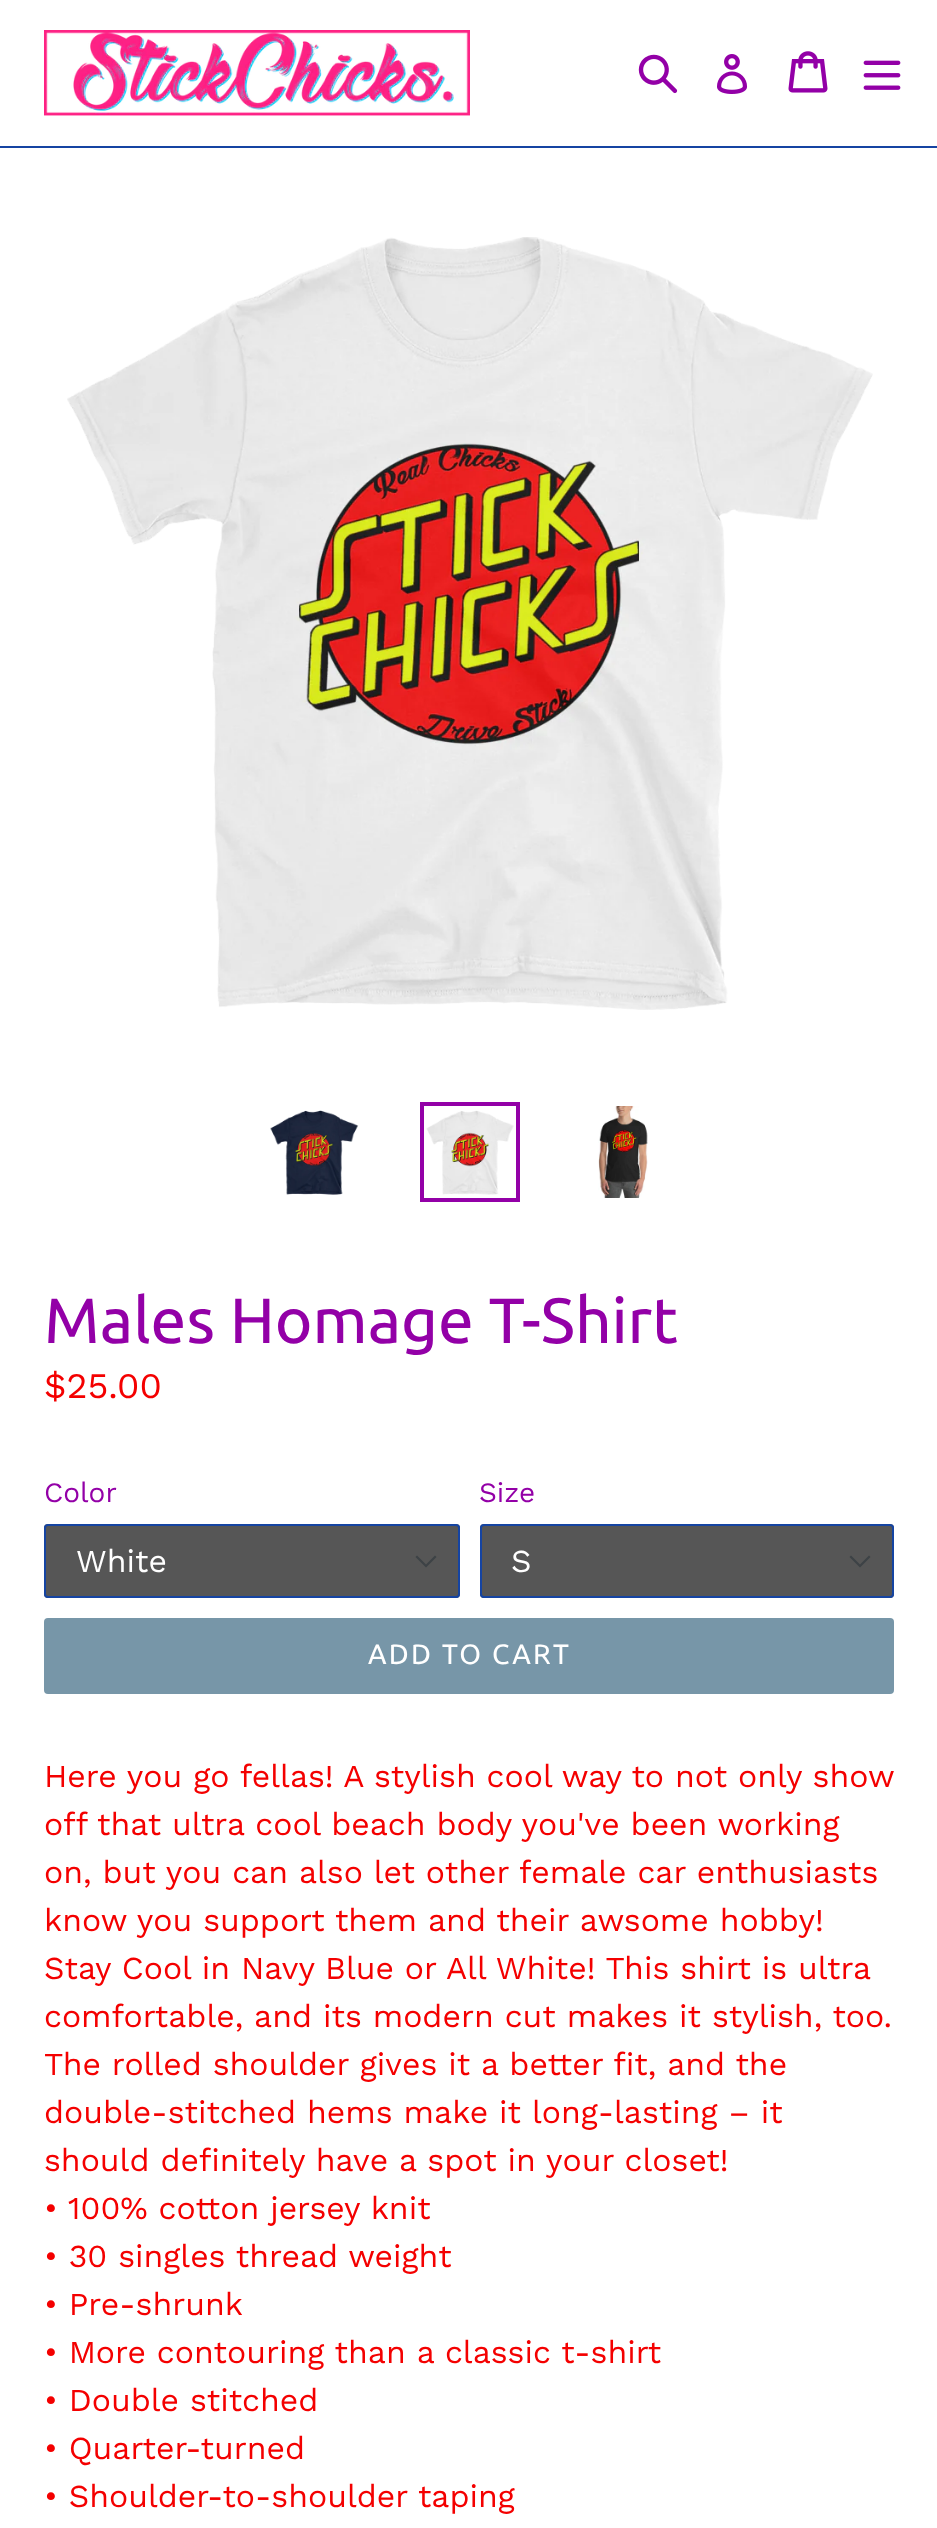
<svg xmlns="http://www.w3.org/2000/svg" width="937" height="2528">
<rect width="100%" height="100%" fill="#fff"/>
<rect y="146" width="937" height="2" fill="#1544a2"/>
<image x="44" y="30" width="426" height="86" href="media/1.png"/>
<image x="638" y="54" width="40" height="40" href="media/2.png"/>
<image x="717" y="54" width="31" height="40" href="media/3.png"/>
<image x="788" y="51" width="40" height="42" href="media/4.png"/>
<image x="863" y="60" width="38" height="30" href="media/5.png"/>
<image x="67" y="237" width="806" height="773" href="media/6.png"/>
<image x="270" y="1110" width="89" height="85" href="media/7.png"/>
<rect x="422" y="1104" width="96" height="96" fill="none" stroke="#9300a7" stroke-width="4"/>
<image x="426" y="1110" width="88" height="85" href="media/8.png"/>
<image x="598" y="1106" width="50" height="92" href="media/9.png"/>
<text x="44" y="1343" style="font-family:Ubuntu;font-size:64px;fill:#9300a7">Males Homage T-Shirt</text>
<text x="44" y="1398" style="font-family:Work Sans;font-size:36px;fill:#f40000">$25.00</text>
<text x="44" y="1502" style="font-family:Work Sans;font-size:28px;fill:#9300a7">Color</text>
<rect x="44" y="1524" width="416" height="74" rx="4" fill="#565656"/>
<path d="M426 1567.5l-10.5-10.5l1.5-1.5l9 9l9-9l1.5 1.5z" fill="#3d4246"/>
<rect x="45" y="1525" width="414" height="72" rx="3" fill="none" stroke="#1544a2" stroke-width="2"/>
<text x="76" y="1572" style="font-family:Work Sans;font-size:32px;fill:#fff">White</text>
<text x="479" y="1502" style="font-family:Work Sans;font-size:28px;fill:#9300a7">Size</text>
<rect x="480" y="1524" width="414" height="74" rx="4" fill="#565656"/>
<path d="M860 1567.5l-10.5-10.5l1.5-1.5l9 9l9-9l1.5 1.5z" fill="#3d4246"/>
<rect x="481" y="1525" width="412" height="72" rx="3" fill="none" stroke="#1544a2" stroke-width="2"/>
<text x="511" y="1572" style="font-family:Work Sans;font-size:32px;fill:#fff">S</text>
<rect x="44" y="1618" width="850" height="76" rx="4" fill="#7796a8"/>
<text x="368" y="1664" style="font-family:Ubuntu;font-size:28px;letter-spacing:2.25px;fill:#fff">ADD TO CART</text>
<text x="44" y="1787" style="font-family:Work Sans;font-size:32px;fill:#f40000">Here you go fellas! A stylish cool way to not only show</text>
<text x="44" y="1835" style="font-family:Work Sans;font-size:32px;fill:#f40000">off that ultra cool beach body you've been working</text>
<text x="44" y="1883" style="font-family:Work Sans;font-size:32px;fill:#f40000">on, but you can also let other female car enthusiasts</text>
<text x="44" y="1931" style="font-family:Work Sans;font-size:32px;fill:#f40000">know you support them and their awsome hobby!</text>
<text x="44" y="1979" style="font-family:Work Sans;font-size:32px;fill:#f40000">Stay Cool in Navy Blue or All White! This shirt is ultra</text>
<text x="44" y="2027" style="font-family:Work Sans;font-size:32px;fill:#f40000">comfortable, and its modern cut makes it stylish, too.</text>
<text x="44" y="2075" style="font-family:Work Sans;font-size:32px;fill:#f40000">The rolled shoulder gives it a better fit, and the</text>
<text x="44" y="2123" style="font-family:Work Sans;font-size:32px;fill:#f40000">double-stitched hems make it long-lasting – it</text>
<text x="44" y="2171" style="font-family:Work Sans;font-size:32px;fill:#f40000">should definitely have a spot in your closet!</text>
<text x="44" y="2219" style="font-family:Work Sans;font-size:32px;fill:#f40000">• 100% cotton jersey knit</text>
<text x="44" y="2267" style="font-family:Work Sans;font-size:32px;fill:#f40000">• 30 singles thread weight</text>
<text x="44" y="2315" style="font-family:Work Sans;font-size:32px;fill:#f40000">• Pre-shrunk</text>
<text x="44" y="2363" style="font-family:Work Sans;font-size:32px;fill:#f40000">• More contouring than a classic t-shirt</text>
<text x="44" y="2411" style="font-family:Work Sans;font-size:32px;fill:#f40000">• Double stitched</text>
<text x="44" y="2459" style="font-family:Work Sans;font-size:32px;fill:#f40000">• Quarter-turned</text>
<text x="44" y="2507" style="font-family:Work Sans;font-size:32px;fill:#f40000">• Shoulder-to-shoulder taping</text>
</svg>
